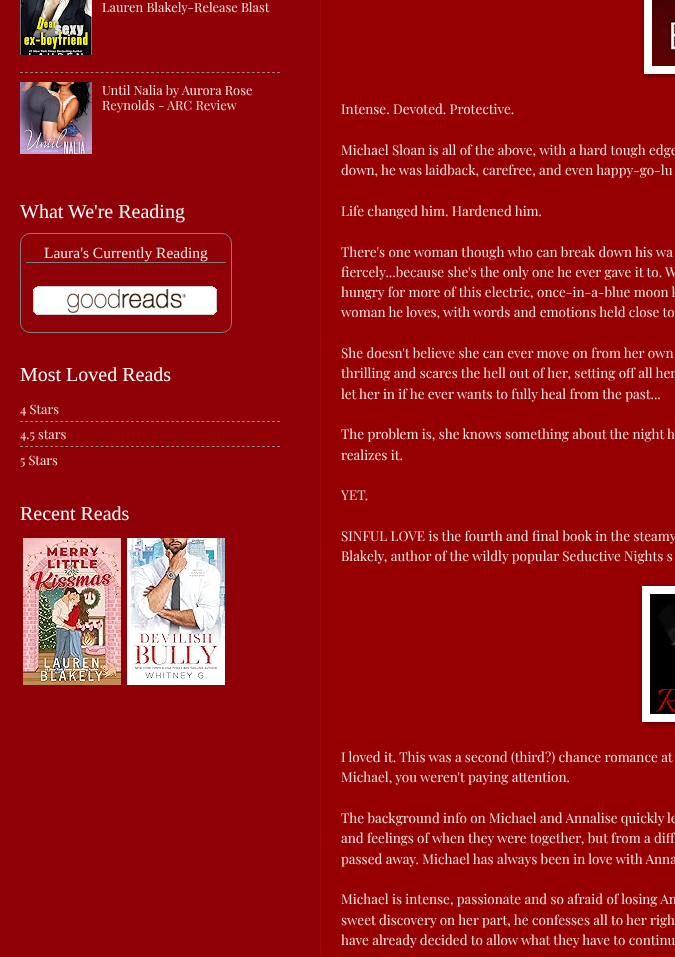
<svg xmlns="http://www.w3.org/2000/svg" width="675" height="957">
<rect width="100%" height="100%" fill="#900007"/>
<image x="20" y="0" width="72" height="55" href="media/1.png"/>
<text x="102" y="12" style="font-family:Playfair Display;font-size:12.9px;fill:#ffe7e2">Lauren Blakely-Release Blast</text>
<path d="M20 72.5h260" fill="none" stroke="#9e827d" stroke-dasharray="3 2.04"/>
<image x="20" y="82" width="72" height="72" href="media/2.png"/>
<text x="102" y="95" style="font-family:Playfair Display;font-size:12.9px;fill:#ffe7e2">Until Nalia by Aurora Rose</text>
<text x="102" y="110" style="font-family:Playfair Display;font-size:12.9px;fill:#ffe7e2">Reynolds - ARC Review</text>
<text x="20" y="218" style="font-family:Liberation Serif;font-size:20px;fill:#fff">What We're Reading</text>
<rect x="20.5" y="233.5" width="211" height="99" rx="9.5" fill="none" stroke="#808080"/>
<rect x="26" y="262" width="200" height="1" fill="#808080"/>
<text x="44" y="258" style="font-family:Liberation Serif;font-size:15.5px;fill:#ffe7e2">Laura's Currently Reading</text>
<image x="33" y="286" width="184" height="29" href="media/3.png"/>
<text x="20" y="381" style="font-family:Liberation Serif;font-size:20px;fill:#fff">Most Loved Reads</text>
<text x="20" y="414" style="font-family:Playfair Display;font-size:12.9px;fill:#ffe7e2">4 Stars</text>
<path d="M20 421.5h260" fill="none" stroke="#9e827d" stroke-dasharray="3 2.04"/>
<text x="20" y="439" style="font-family:Playfair Display;font-size:12.9px;fill:#ffe7e2">4.5 stars</text>
<path d="M20 446.5h260" fill="none" stroke="#9e827d" stroke-dasharray="3 2.04"/>
<text x="20" y="465" style="font-family:Playfair Display;font-size:12.9px;fill:#ffe7e2">5 Stars</text>
<text x="20" y="520" style="font-family:Liberation Serif;font-size:20px;fill:#fff">Recent Reads</text>
<image x="23" y="538" width="98" height="147" href="media/4.png"/>
<image x="127" y="538" width="98" height="147" href="media/5.png"/>
<rect x="320" width="355" height="957" fill="#960002"/>
<path d="M320.5-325v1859" fill="none" stroke="#6a2d23" stroke-dasharray="1 1"/>
<rect x="645" y="-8" width="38" height="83" fill="#00000080" filter="blur(2.5px)"/>
<rect x="644" width="31" height="74" fill="#fff"/>
<image x="652" y="0" width="23" height="66" href="media/6.png"/>
<text x="341" y="114" style="font-family:Playfair Display;font-size:13.5px;fill:#ffe7e2">Intense. Devoted. Protective.</text>
<text x="341" y="155" style="font-family:Playfair Display;font-size:13.5px;fill:#ffe7e2">Michael Sloan is all of the above, with a hard tough edge</text>
<text x="341" y="175" style="font-family:Playfair Display;font-size:13.5px;fill:#ffe7e2">down, he was laidback, carefree, and even happy-go-lu</text>
<text x="341" y="216" style="font-family:Playfair Display;font-size:13.5px;fill:#ffe7e2">Life changed him. Hardened him.</text>
<text x="341" y="257" style="font-family:Playfair Display;font-size:13.5px;fill:#ffe7e2">There's one woman though who can break down his wa</text>
<text x="341" y="277" style="font-family:Playfair Display;font-size:13.5px;fill:#ffe7e2">fiercely...because she's the only one he ever gave it to. W</text>
<text x="341" y="297" style="font-family:Playfair Display;font-size:13.5px;fill:#ffe7e2">hungry for more of this electric, once-in-a-blue moon k</text>
<text x="341" y="317" style="font-family:Playfair Display;font-size:13.5px;fill:#ffe7e2">woman he loves, with words and emotions held close to</text>
<text x="341" y="358" style="font-family:Playfair Display;font-size:13.5px;fill:#ffe7e2">She doesn't believe she can ever move on from her own</text>
<text x="341" y="378" style="font-family:Playfair Display;font-size:13.5px;fill:#ffe7e2">thrilling and scares the hell out of her, setting off all her</text>
<text x="341" y="399" style="font-family:Playfair Display;font-size:13.5px;fill:#ffe7e2">let her in if he ever wants to fully heal from the past...</text>
<text x="341" y="439" style="font-family:Playfair Display;font-size:13.5px;fill:#ffe7e2">The problem is, she knows something about the night h</text>
<text x="341" y="460" style="font-family:Playfair Display;font-size:13.5px;fill:#ffe7e2">realizes it.</text>
<text x="341" y="500" style="font-family:Playfair Display;font-size:13.5px;fill:#ffe7e2">YET.</text>
<text x="341" y="541" style="font-family:Playfair Display;font-size:13.5px;fill:#ffe7e2">SINFUL LOVE is the fourth and final book in the steamy</text>
<text x="341" y="561" style="font-family:Playfair Display;font-size:13.5px;fill:#ffe7e2">Blakely, author of the wildly popular Seductive Nights s</text>
<rect x="643" y="587" width="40" height="136" fill="#00000080" filter="blur(2.5px)"/>
<rect x="642" y="586" width="33" height="136" fill="#fff"/>
<image x="650" y="594" width="25" height="120" href="media/7.png"/>
<text x="341" y="762" style="font-family:Playfair Display;font-size:13.5px;fill:#ffe7e2">I loved it. This was a second (third?) chance romance at</text>
<text x="341" y="782" style="font-family:Playfair Display;font-size:13.5px;fill:#ffe7e2">Michael, you weren't paying attention.</text>
<text x="341" y="823" style="font-family:Playfair Display;font-size:13.5px;fill:#ffe7e2">The background info on Michael and Annalise quickly le</text>
<text x="341" y="843" style="font-family:Playfair Display;font-size:13.5px;fill:#ffe7e2">and feelings of when they were together, but from a diff</text>
<text x="341" y="864" style="font-family:Playfair Display;font-size:13.5px;fill:#ffe7e2">passed away. Michael has always been in love with Anna</text>
<text x="341" y="904" style="font-family:Playfair Display;font-size:13.5px;fill:#ffe7e2">Michael is intense, passionate and so afraid of losing An</text>
<text x="341" y="925" style="font-family:Playfair Display;font-size:13.5px;fill:#ffe7e2">sweet discovery on her part, he confesses all to her righ</text>
<text x="341" y="945" style="font-family:Playfair Display;font-size:13.5px;fill:#ffe7e2">have already decided to allow what they have to continu</text>
</svg>
